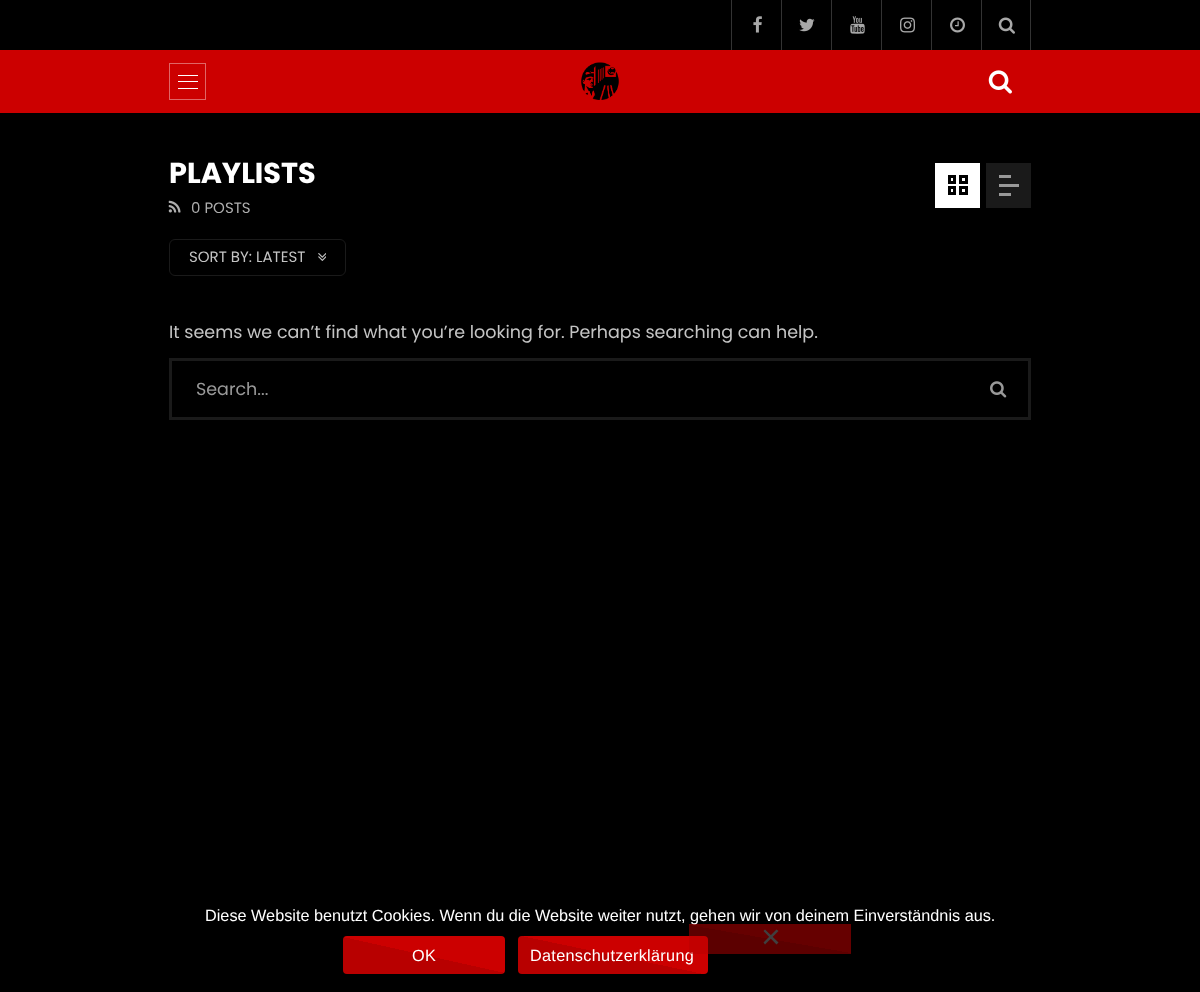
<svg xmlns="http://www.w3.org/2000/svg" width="1200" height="992">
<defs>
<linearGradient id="g1" gradientUnits="userSpaceOnUse" x1="620" y1="919" x2="605" y2="991"><stop offset="0.5" stop-color="#c00"/><stop offset="0.5" stop-color="#b80000"/></linearGradient>
<linearGradient id="g2" gradientUnits="userSpaceOnUse" x1="775" y1="910" x2="765" y2="968"><stop offset="0.5" stop-color="#c00" stop-opacity="0.5"/><stop offset="0.5" stop-color="#b80000" stop-opacity="0.5"/></linearGradient>
<linearGradient id="g3" gradientUnits="userSpaceOnUse" x1="432" y1="919" x2="416" y2="991"><stop offset="0.5" stop-color="#c00"/><stop offset="0.5" stop-color="#b80000"/></linearGradient>
</defs>
<rect width="100%" height="100%" fill="#000"/>
<rect x="731" width="1" height="50" fill="#333"/>
<image x="753" y="16" width="9" height="17" href="media/1.png"/>
<rect x="781" width="1" height="50" fill="#333"/>
<image x="799" y="18" width="16" height="14" href="media/2.png"/>
<rect x="831" width="1" height="50" fill="#333"/>
<image x="850" y="16" width="15" height="18" href="media/3.png"/>
<rect x="881" width="1" height="50" fill="#333"/>
<image x="900" y="17" width="15" height="16" href="media/4.png"/>
<rect x="931" width="1" height="50" fill="#333"/>
<image x="950" y="17" width="15" height="16" href="media/5.png"/>
<rect x="1030" width="1" height="50" fill="#333"/>
<rect x="981" width="1" height="50" fill="#333"/>
<image x="998" y="17" width="17" height="17" href="media/6.png"/>
<rect y="50" width="1200" height="63" fill="#c00"/>
<rect x="169.5" y="63.5" width="36" height="36" fill="none" stroke="#e06666"/>
<rect x="178" y="75" width="20" height="1" fill="#fff"/>
<rect x="178" y="81" width="20" height="1" fill="#fff"/>
<rect x="178" y="88" width="20" height="1" fill="#fff"/>
<image x="581" y="62" width="38" height="38" href="media/7.png"/>
<image x="988" y="70" width="24" height="24" href="media/8.png"/>
<text x="169" y="183" style="font-family:Poppins;font-size:28.75px;font-weight:bold;fill:#fff">PLAYLISTS</text>
<image x="168" y="200" width="13" height="13" href="media/9.png"/>
<text x="191" y="213" style="font-family:Poppins;font-size:15px;fill:#aeaeae">0 POSTS</text>
<rect x="169.5" y="239.5" width="176" height="36" rx="5.5" fill="none" stroke="#1a1a1a"/>
<text x="189" y="262" style="font-family:Poppins;font-size:15px;fill:#c4c4c4">SORT BY: LATEST</text>
<image x="318" y="253" width="8" height="8" href="media/10.png"/>
<rect x="935" y="163" width="45" height="45" fill="#fff"/>
<rect x="949.5" y="176.5" width="5" height="6" fill="none" stroke="#000" stroke-width="3"/>
<rect x="960.5" y="176.5" width="6" height="6" fill="none" stroke="#000" stroke-width="3"/>
<rect x="949.5" y="187.5" width="5" height="6" fill="none" stroke="#000" stroke-width="3"/>
<rect x="960.5" y="187.5" width="6" height="6" fill="none" stroke="#000" stroke-width="3"/>
<rect x="986" y="163" width="45" height="45" fill="#1a1a1a"/>
<rect x="999" y="175" width="12" height="3" fill="#999"/>
<rect x="999" y="184" width="20" height="3" fill="#999"/>
<rect x="999" y="193" width="12" height="3" fill="#999"/>
<text x="169" y="338" style="font-family:Poppins;font-size:17.5px;fill:#c4c4c4">It seems we can’t find what you’re looking for. Perhaps searching can help.</text>
<rect x="170.5" y="359.5" width="859" height="59" fill="none" stroke="#1a1a1a" stroke-width="3"/>
<text x="196" y="395" style="font-family:Poppins;font-size:17.5px;fill:#999">Search...</text>
<image x="990" y="381" width="17" height="17" href="media/11.png"/>
<text x="205" y="921" style="font-family:Liberation Sans;font-size:16.25px;fill:#fff">Diese Website benutzt Cookies. Wenn du die Website weiter nutzt, gehen wir von deinem Einverständnis aus.</text>
<rect x="518" y="936" width="190" height="38" rx="4" fill="url(#g1)"/>
<text x="530" y="961" style="font-family:Liberation Sans;font-size:16.25px;letter-spacing:0.3px;fill:#fff">Datenschutzerklärung</text>
<rect x="689" y="924" width="162" height="30" fill="url(#g2)"/>
<path d="M776.5 929.5l2 1.5l-13.5 13.5l-1.5-2z" fill="#404040"/>
<path d="M763.5 931l1.5-1.5l13.5 13l-2 2z" fill="#404040"/>
<rect x="343" y="936" width="162" height="38" rx="4" fill="url(#g3)"/>
<text x="412" y="961" style="font-family:Liberation Sans;font-size:16.25px;letter-spacing:0.3px;fill:#fff">OK</text>
</svg>
